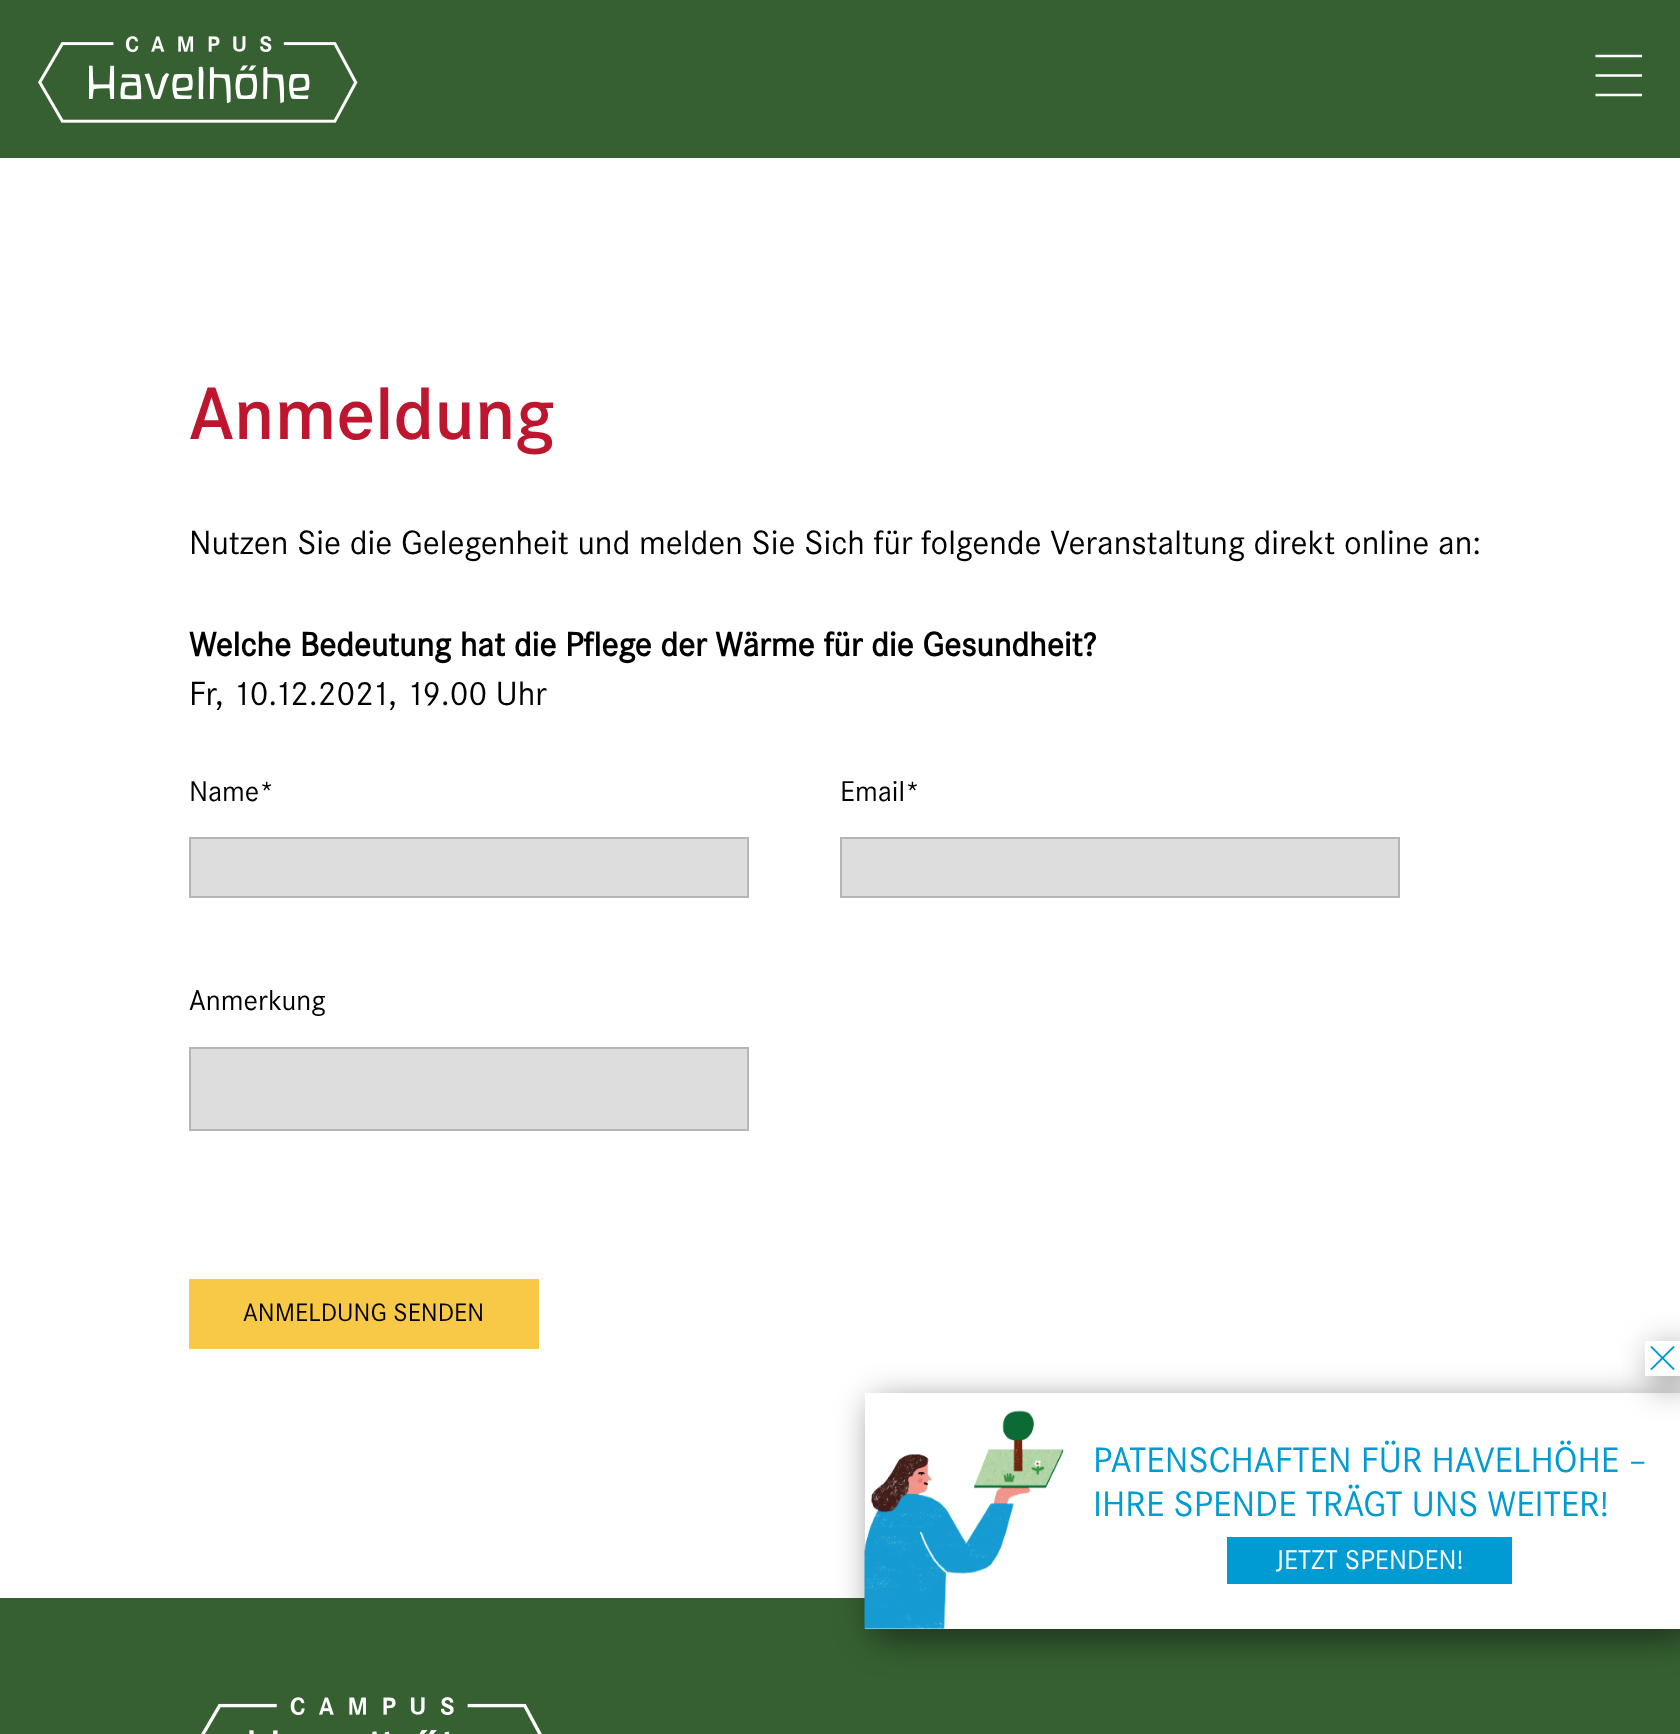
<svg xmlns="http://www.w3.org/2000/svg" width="1680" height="1734">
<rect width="100%" height="100%" fill="#fff"/>
<rect width="1680" height="158" fill="#366032"/>
<image x="38" y="36" width="320" height="87" href="media/1.png"/>
<path d="M1595.5 56h46.5m-46.5 19.5h46.5m-46.5 19.5h46.5" fill="none" stroke="#fff" stroke-width="2.7"/>
<text x="189" y="439" style="font-family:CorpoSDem;font-size:77px;fill:#be162e">Anmeldung</text>
<text x="189" y="554" style="font-family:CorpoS;font-size:35px;fill:#000">Nutzen Sie die Gelegenheit und melden Sie Sich für folgende Veranstaltung direkt online an:</text>
<text x="189" y="656" style="font-family:CorpoS;font-size:35px;font-weight:bold;fill:#000">Welche Bedeutung hat die Pflege der Wärme für die Gesundheit?</text>
<text x="189" y="705" style="font-family:CorpoS;font-size:35px;fill:#000">Fr, 10.12.2021, 19.00 Uhr</text>
<text x="189" y="801" style="font-family:CorpoS;font-size:29.75px;fill:#000">Name*</text>
<rect x="190" y="838" width="558" height="59" fill="#ddd" stroke="#b5b5b5" stroke-width="2"/>
<text x="840" y="801" style="font-family:CorpoS;font-size:29.75px;fill:#000">Email*</text>
<rect x="841" y="838" width="558" height="59" fill="#ddd" stroke="#b5b5b5" stroke-width="2"/>
<text x="189" y="1010" style="font-family:CorpoS;font-size:29.75px;fill:#000">Anmerkung</text>
<rect x="190" y="1048" width="558" height="82" fill="#ddd" stroke="#b5b5b5" stroke-width="2"/>
<rect x="189" y="1279" width="350" height="70" fill="#f7c946"/>
<text x="243" y="1321" style="font-family:CorpoS;font-size:26.25px;fill:#000">ANMELDUNG SENDEN</text>
<rect y="1598" width="1680" height="136" fill="#366032"/>
<rect x="873" y="1402" width="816" height="236" fill="#00000080" filter="blur(17.5px)"/>
<rect x="865" y="1393" width="815" height="236" fill="#fff"/>
<rect x="1654" y="1349" width="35" height="35" fill="#00000080" filter="blur(17.5px)"/>
<rect x="1645" y="1341" width="35" height="35" fill="#fff"/>
<image x="1650" y="1346" width="25" height="24" href="media/2.png"/>
<image x="864" y="1410" width="200" height="220" href="media/3.png"/>
<text x="1093" y="1472" style="font-family:CorpoS;font-size:36.75px;fill:#009bd2">PATENSCHAFTEN FÜR HAVELHÖHE –</text>
<text x="1093" y="1516" style="font-family:CorpoS;font-size:36.75px;fill:#009bd2">IHRE SPENDE TRÄGT UNS WEITER!</text>
<rect x="1227" y="1537" width="285" height="47" fill="#009bd2"/>
<text x="1276" y="1569" style="font-family:CorpoS;font-size:28px;fill:#fff">JETZT SPENDEN!</text>
<image x="201" y="1697" width="341" height="37" href="media/4.png"/>
</svg>
